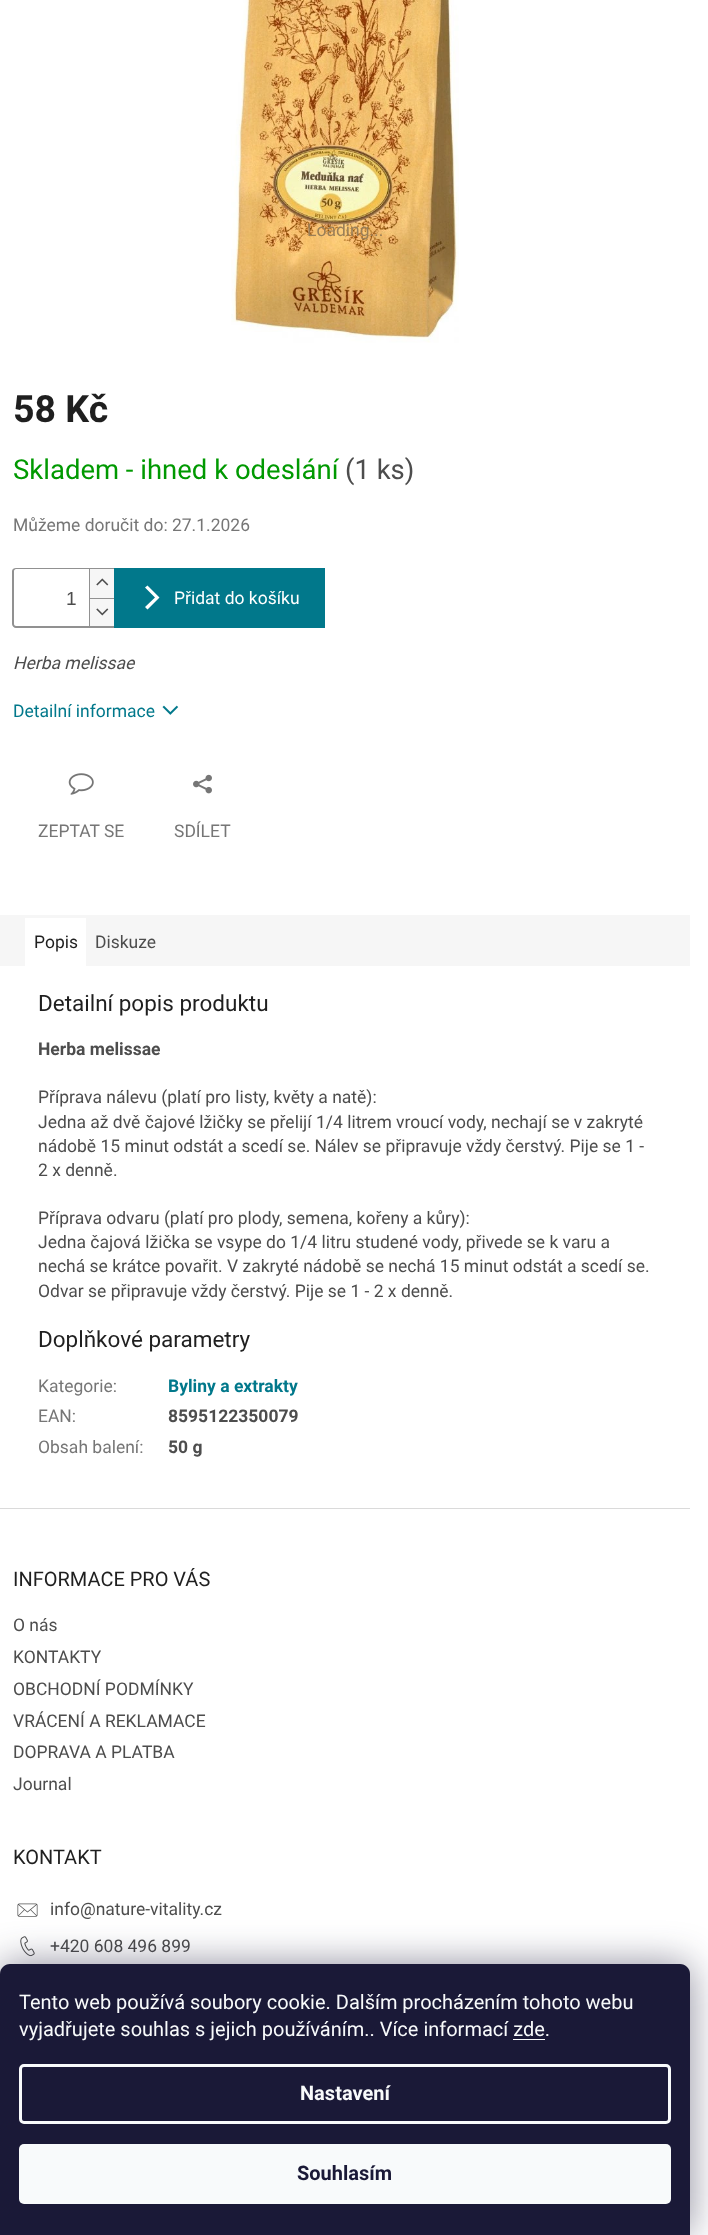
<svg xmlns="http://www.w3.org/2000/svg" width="708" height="2235">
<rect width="100%" height="100%" fill="#fff"/>
<image x="231" y="0" width="228" height="343" href="media/1.png"/>
<text x="307" y="236" style="font-family:Roboto;font-size:17.5px;fill:#9a7f58">Loading...</text>
<text x="13" y="422" style="font-family:Roboto;font-size:37.5px;font-weight:bold;fill:#1f1f1f">58 Kč</text>
<text x="13" y="479" style="font-family:Roboto;font-size:27.5px;fill:#009901">Skladem - ihned k odeslání</text>
<text x="345" y="479" style="font-family:Roboto;font-size:27.5px;fill:#4d4d4d">(1 ks)</text>
<text x="13" y="531" style="font-family:Roboto;font-size:17.5px;fill:#767676">Můžeme doručit do: 27.1.2026</text>
<path d="M16 568h98v60h-98c-2 0-4-2-4-4v-53c0-2 2-3 4-3zm0 1h98v57h-98c-1 0-2-1-2-2v-53c0-1 1-2 2-2z" fill="#919191" fill-rule="evenodd"/>
<text x="66" y="605" style="font-family:Liberation Sans;font-size:19px;fill:#4d4d4d">1</text>
<rect x="90" y="569" width="24" height="29" fill="#f6f6f6"/>
<rect x="89" y="569" width="1" height="29" fill="#919191"/>
<image x="96" y="578" width="13" height="8" href="media/2.png"/>
<rect x="90" y="599" width="24" height="27" fill="#f6f6f6"/>
<rect x="89" y="598" width="25" height="1" fill="#919191"/>
<rect x="89" y="598" width="1" height="28" fill="#919191"/>
<image x="96" y="608" width="13" height="8" href="media/3.png"/>
<rect x="114" y="568" width="211" height="60" fill="#01788b"/>
<path d="M147.5 609.5l-2.5-2.5l10-9.5l-10-10l2.5-2l12 12z" fill="#fff"/>
<text x="174" y="604" style="font-family:Roboto;font-size:17.5px;fill:#fff">Přidat do košíku</text>
<text x="13" y="669" style="font-family:Roboto;font-size:17.5px;font-style:italic;fill:#4d4d4d">Herba melissae</text>
<text x="13" y="717" style="font-family:Roboto;font-size:17.5px;fill:#01788b">Detailní informace</text>
<image x="162" y="705" width="17" height="10" href="media/4.png"/>
<image x="68" y="773" width="26" height="22" href="media/5.png"/>
<text x="38" y="837" style="font-family:Roboto;font-size:17.5px;fill:#767676">ZEPTAT SE</text>
<image x="193" y="774" width="19" height="20" href="media/6.png"/>
<text x="174" y="837" style="font-family:Roboto;font-size:17.5px;fill:#767676">SDÍLET</text>
<rect y="915" width="690" height="51" fill="#f6f6f6"/>
<rect x="25" y="918" width="61" height="48" fill="#fff"/>
<text x="34" y="948" style="font-family:Roboto;font-size:17.5px;fill:#1f1f1f">Popis</text>
<text x="95" y="948" style="font-family:Roboto;font-size:17.5px;fill:#4d4d4d">Diskuze</text>
<text x="38" y="1011" style="font-family:Roboto;font-size:22.5px;fill:#1f1f1f">Detailní popis produktu</text>
<text x="38" y="1055" style="font-family:Roboto;font-size:17.5px;font-weight:bold;fill:#4d4d4d">Herba melissae</text>
<text x="38" y="1103" style="font-family:Roboto;font-size:17.5px;fill:#4d4d4d">Příprava nálevu (platí pro listy, květy a natě):</text>
<text x="38" y="1128" style="font-family:Roboto;font-size:17.5px;fill:#4d4d4d">Jedna až dvě čajové lžičky se přelijí 1/4 litrem vroucí vody, nechají se v zakryté</text>
<text x="38" y="1152" style="font-family:Roboto;font-size:17.5px;fill:#4d4d4d">nádobě 15 minut odstát a scedí se. Nálev se připravuje vždy čerstvý. Pije se 1 -</text>
<text x="38" y="1176" style="font-family:Roboto;font-size:17.5px;fill:#4d4d4d">2 x denně.</text>
<text x="38" y="1224" style="font-family:Roboto;font-size:17.5px;fill:#4d4d4d">Příprava odvaru (platí pro plody, semena, kořeny a kůry):</text>
<text x="38" y="1248" style="font-family:Roboto;font-size:17.5px;fill:#4d4d4d">Jedna čajová lžička se vsype do 1/4 litru studené vody, přivede se k varu a</text>
<text x="38" y="1272" style="font-family:Roboto;font-size:17.5px;fill:#4d4d4d">nechá se krátce povařit. V zakryté nádobě se nechá 15 minut odstát a scedí se.</text>
<text x="38" y="1297" style="font-family:Roboto;font-size:17.5px;fill:#4d4d4d">Odvar se připravuje vždy čerstvý. Pije se 1 - 2 x denně.</text>
<text x="38" y="1347" style="font-family:Roboto;font-size:22.5px;fill:#1f1f1f">Doplňkové parametry</text>
<text x="38" y="1392" style="font-family:Roboto;font-size:17.5px;fill:#767676">Kategorie:</text>
<text x="168" y="1392" style="font-family:Roboto;font-size:17.5px;font-weight:bold;fill:#01788b">Byliny a extrakty</text>
<text x="38" y="1422" style="font-family:Roboto;font-size:17.5px;fill:#767676">EAN:</text>
<text x="168" y="1422" style="font-family:Roboto;font-size:17.5px;font-weight:bold;fill:#4d4d4d">8595122350079</text>
<text x="38" y="1453" style="font-family:Roboto;font-size:17.5px;fill:#767676">Obsah balení:</text>
<text x="168" y="1453" style="font-family:Roboto;font-size:17.5px;font-weight:bold;fill:#4d4d4d">50 g</text>
<rect y="1508" width="690" height="1" fill="#dadada"/>
<text x="13" y="1586" style="font-family:Roboto;font-size:20px;fill:#1f1f1f">INFORMACE PRO VÁS</text>
<text x="13" y="1631" style="font-family:Roboto;font-size:17.5px;fill:#4d4d4d">O nás</text>
<text x="13" y="1663" style="font-family:Roboto;font-size:17.5px;fill:#4d4d4d">KONTAKTY</text>
<text x="13" y="1695" style="font-family:Roboto;font-size:17.5px;fill:#4d4d4d">OBCHODNÍ PODMÍNKY</text>
<text x="13" y="1727" style="font-family:Roboto;font-size:17.5px;fill:#4d4d4d">VRÁCENÍ A REKLAMACE</text>
<text x="13" y="1758" style="font-family:Roboto;font-size:17.5px;fill:#4d4d4d">DOPRAVA A PLATBA</text>
<text x="13" y="1790" style="font-family:Roboto;font-size:17.5px;fill:#4d4d4d">Journal</text>
<text x="13" y="1864" style="font-family:Roboto;font-size:20px;fill:#1f1f1f">KONTAKT</text>
<image x="17" y="1903" width="21" height="14" href="media/7.png"/>
<text x="50" y="1915" style="font-family:Roboto;font-size:17.5px;fill:#4d4d4d">info@nature-vitality.cz</text>
<image x="20" y="1936" width="15" height="21" href="media/8.png"/>
<text x="50" y="1952" style="font-family:Roboto;font-size:17.5px;fill:#4d4d4d">+420 608 496 899</text>
<rect y="1964" width="690" height="271" rx="10" fill="#1b193980" filter="blur(19px)"/>
<path d="M10 1964h670c5.5 0 10 4.5 10 10v261h-690v-261c0-5.5 4.5-10 10-10z" fill="#1a1937"/>
<text x="19" y="2009" style="font-family:Roboto;font-size:20px;fill:#f8fafb">Tento web používá soubory cookie. Dalším procházením tohoto webu</text>
<text x="19" y="2036" style="font-family:Roboto;font-size:20px;fill:#f8fafb">vyjadřujete souhlas s jejich používáním.. Více informací zde.</text>
<rect x="513" y="2039" width="32" height="1" fill="#f8fafb"/>
<rect x="20.5" y="2065.5" width="649" height="57" rx="3.5" fill="none" stroke="#f8fafb" stroke-width="3"/>
<text x="300" y="2100" style="font-family:Roboto;font-size:20px;font-weight:bold;fill:#f8fafb">Nastavení</text>
<rect x="19" y="2144" width="652" height="60" rx="5" fill="#f8fafb"/>
<text x="297" y="2180" style="font-family:Roboto;font-size:20px;font-weight:bold;fill:#1a1937">Souhlasím</text>
</svg>
